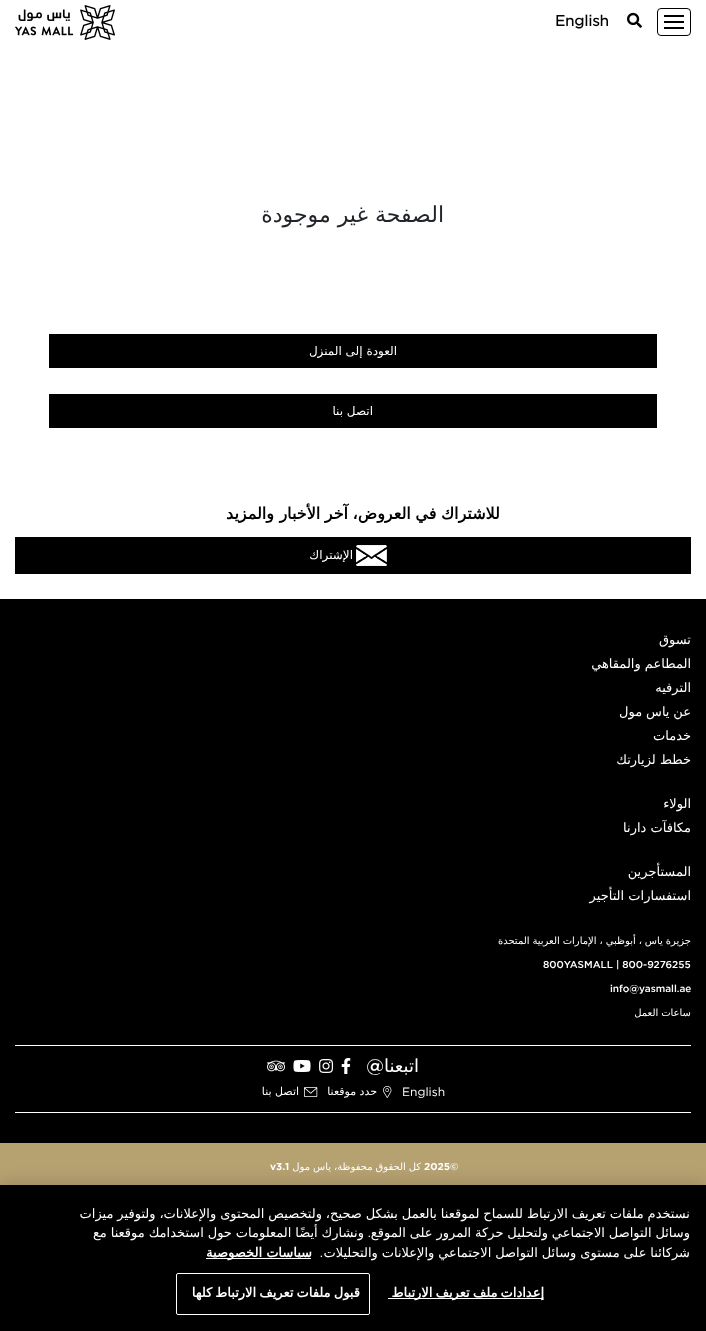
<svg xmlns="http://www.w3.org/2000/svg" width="706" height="1331">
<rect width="100%" height="100%" fill="#fff"/>
<rect x="657.5" y="8.5" width="33" height="27" rx="3.5" fill="none" stroke="#000"/>
<rect x="664" y="15" width="20" height="2" fill="#000"/>
<rect x="664" y="21" width="20" height="2" fill="#000"/>
<rect x="664" y="27" width="20" height="2" fill="#000"/>
<image x="627" y="12" width="15" height="16" href="media/1.png"/>
<text x="555" y="26" style="font-family:'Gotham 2';font-size:15px;font-weight:bold;fill:#000">English</text>
<image x="15" y="5" width="100" height="35" href="media/2.png"/>
<text x="444" y="222" style="font-family:DejaVu Sans;font-size:22px;direction:rtl;fill:#212529">الصفحة غير موجودة</text>
<rect x="49" y="334" width="608" height="34" fill="#000"/>
<text x="397" y="355" style="font-family:DejaVu Sans;font-size:12px;direction:rtl;fill:#fff">العودة إلى المنزل</text>
<rect x="49" y="394" width="608" height="34" fill="#000"/>
<text x="373" y="415" style="font-family:DejaVu Sans;font-size:12px;direction:rtl;fill:#fff">اتصل بنا</text>
<text x="500" y="519" word-spacing="-0.5" style="font-family:DejaVu Sans;font-size:16px;font-weight:bold;direction:rtl;fill:#000">للاشتراك في العروض، آخر الأخبار</text>
<text x="274" y="519" style="font-family:DejaVu Sans;font-size:16px;font-weight:bold;direction:rtl;fill:#000">والمزيد</text>
<rect x="15" y="537" width="676" height="37" fill="#000"/>
<image x="356" y="545" width="31" height="21" href="media/3.png"/>
<text x="353" y="559" style="font-family:DejaVu Sans;font-size:12px;direction:rtl;fill:#fff">الإشتراك</text>
<rect y="599" width="706" height="544" fill="#000"/>
<text x="691" y="644" style="font-family:DejaVu Sans;font-size:13px;direction:rtl;fill:#fff">تسوق</text>
<text x="691" y="668" style="font-family:DejaVu Sans;font-size:13px;direction:rtl;fill:#fff">المطاعم والمقاهي</text>
<text x="691" y="692" style="font-family:DejaVu Sans;font-size:13px;direction:rtl;fill:#fff">الترفيه</text>
<text x="691" y="716" word-spacing="-0.25" style="font-family:DejaVu Sans;font-size:13px;direction:rtl;fill:#fff">عن ياس مول</text>
<text x="691" y="740" style="font-family:DejaVu Sans;font-size:13px;direction:rtl;fill:#fff">خدمات</text>
<text x="691" y="764" style="font-family:DejaVu Sans;font-size:13px;direction:rtl;fill:#fff">خطط لزيارتك</text>
<text x="691" y="808" style="font-family:DejaVu Sans;font-size:13px;direction:rtl;fill:#fff">الولاء</text>
<text x="691" y="832" style="font-family:DejaVu Sans;font-size:13px;direction:rtl;fill:#fff">مكافآت دارنا</text>
<text x="691" y="876" style="font-family:DejaVu Sans;font-size:13px;direction:rtl;fill:#fff">المستأجرين</text>
<text x="691" y="900" style="font-family:DejaVu Sans;font-size:13px;direction:rtl;fill:#fff">استفسارات التأجير</text>
<text x="691" y="944" word-spacing="-0.25" style="font-family:DejaVu Sans;font-size:10px;direction:rtl;fill:#fff">جزيرة ياس ، أبوظبي ، الإمارات العربية المتحدة</text>
<text x="543" y="968" style="font-family:Gotham;font-size:10px;font-weight:500;fill:#fff">800YASMALL | 800-9276255</text>
<text x="610" y="992" style="font-family:Gotham;font-size:10px;font-weight:500;fill:#fff">info@yasmall.ae</text>
<text x="691" y="1016" word-spacing="-0.25" style="font-family:DejaVu Sans;font-size:10px;direction:rtl;fill:#fff">ساعات العمل</text>
<rect x="15" y="1045" width="676" height="1" fill="#fff"/>
<rect x="15" y="1112" width="676" height="1" fill="#fff"/>
<text x="419" y="1072" style="font-family:DejaVu Sans;font-size:18px;direction:rtl;fill:#fff">اتبعنا</text>
<text x="384" y="1072" style="font-family:Gotham;font-size:18px;font-weight:500;direction:rtl;fill:#fff">@</text>
<image x="341" y="1058" width="10" height="16" href="media/4.png"/>
<image x="319" y="1059" width="15" height="14" href="media/5.png"/>
<image x="293" y="1060" width="18" height="12" href="media/6.png"/>
<image x="267" y="1060" width="18" height="12" href="media/7.png"/>
<text x="402" y="1096" style="font-family:Gotham;font-size:12px;fill:#fff">English</text>
<image x="383" y="1086" width="9" height="12" href="media/8.png"/>
<text x="377" y="1095" style="font-family:DejaVu Sans;font-size:11px;direction:rtl;fill:#fff">حدد موقعنا</text>
<image x="304" y="1087" width="14" height="10" href="media/9.png"/>
<text x="299" y="1095" style="font-family:DejaVu Sans;font-size:11px;direction:rtl;fill:#fff">اتصل بنا</text>
<rect y="1143" width="706" height="42" fill="#b6a171"/>
<text x="424" y="1170" style="font-family:Gotham;font-size:10px;font-weight:bold;fill:#fff">2025©</text>
<text x="421" y="1170" word-spacing="-0.25" style="font-family:DejaVu Sans;font-size:10px;direction:rtl;fill:#fff">كل الحقوق محفوظة، ياس مول</text>
<text x="270" y="1170" style="font-family:Gotham;font-size:10px;font-weight:bold;fill:#fff">v3.1</text>
<rect y="1185" width="706" height="146" fill="#00000033" filter="blur(9px)"/>
<rect y="1185" width="706" height="146" fill="#000"/>
<text x="690" y="1218" word-spacing="-0.25" style="font-family:DejaVu Sans;font-size:13px;direction:rtl;fill:#fff">نستخدم ملفات تعريف الارتباط للسماح لموقعنا بالعمل بشكل صحيح، ولتخصيص المحتوى والإعلانات، ولتوفير ميزات</text>
<text x="690" y="1237" word-spacing="-0.25" style="font-family:DejaVu Sans;font-size:13px;direction:rtl;fill:#fff">وسائل التواصل الاجتماعي ولتحليل حركة المرور على الموقع</text>
<text x="371" y="1237" style="font-family:Gotham;font-size:13px;direction:rtl;fill:#fff">.</text>
<text x="364" y="1237" word-spacing="-0.25" style="font-family:DejaVu Sans;font-size:13px;direction:rtl;fill:#fff">ونشارك أيضًا المعلومات حول استخدامك موقعنا مع</text>
<text x="690" y="1257" word-spacing="-0.25" style="font-family:DejaVu Sans;font-size:13px;direction:rtl;fill:#fff">شركائنا على مستوى وسائل التواصل الاجتماعي والإعلانات والتحليلات</text>
<text x="323" y="1257" style="font-family:Gotham;font-size:13px;direction:rtl;fill:#fff">.</text>
<rect x="206" y="1258" width="105" height="1" fill="#fff"/>
<text x="312" y="1257" style="font-family:DejaVu Sans;font-size:13px;font-weight:bold;direction:rtl;fill:#fff">سياسات الخصوصية</text>
<rect x="388" y="1298" width="155" height="1" fill="#fff"/>
<text x="544" y="1297" word-spacing="-1" style="font-family:DejaVu Sans;font-size:13px;font-weight:bold;letter-spacing:0.1px;direction:rtl;fill:#fff">إعدادات ملف تعريف الارتباط</text>
<rect x="176.5" y="1273.5" width="193" height="41" rx="1.5" fill="none" stroke="#fff"/>
<text x="360" y="1297" word-spacing="-1" style="font-family:DejaVu Sans;font-size:13px;font-weight:bold;letter-spacing:0.1px;direction:rtl;fill:#fff">قبول ملفات تعريف الارتباط كلها</text>
</svg>
